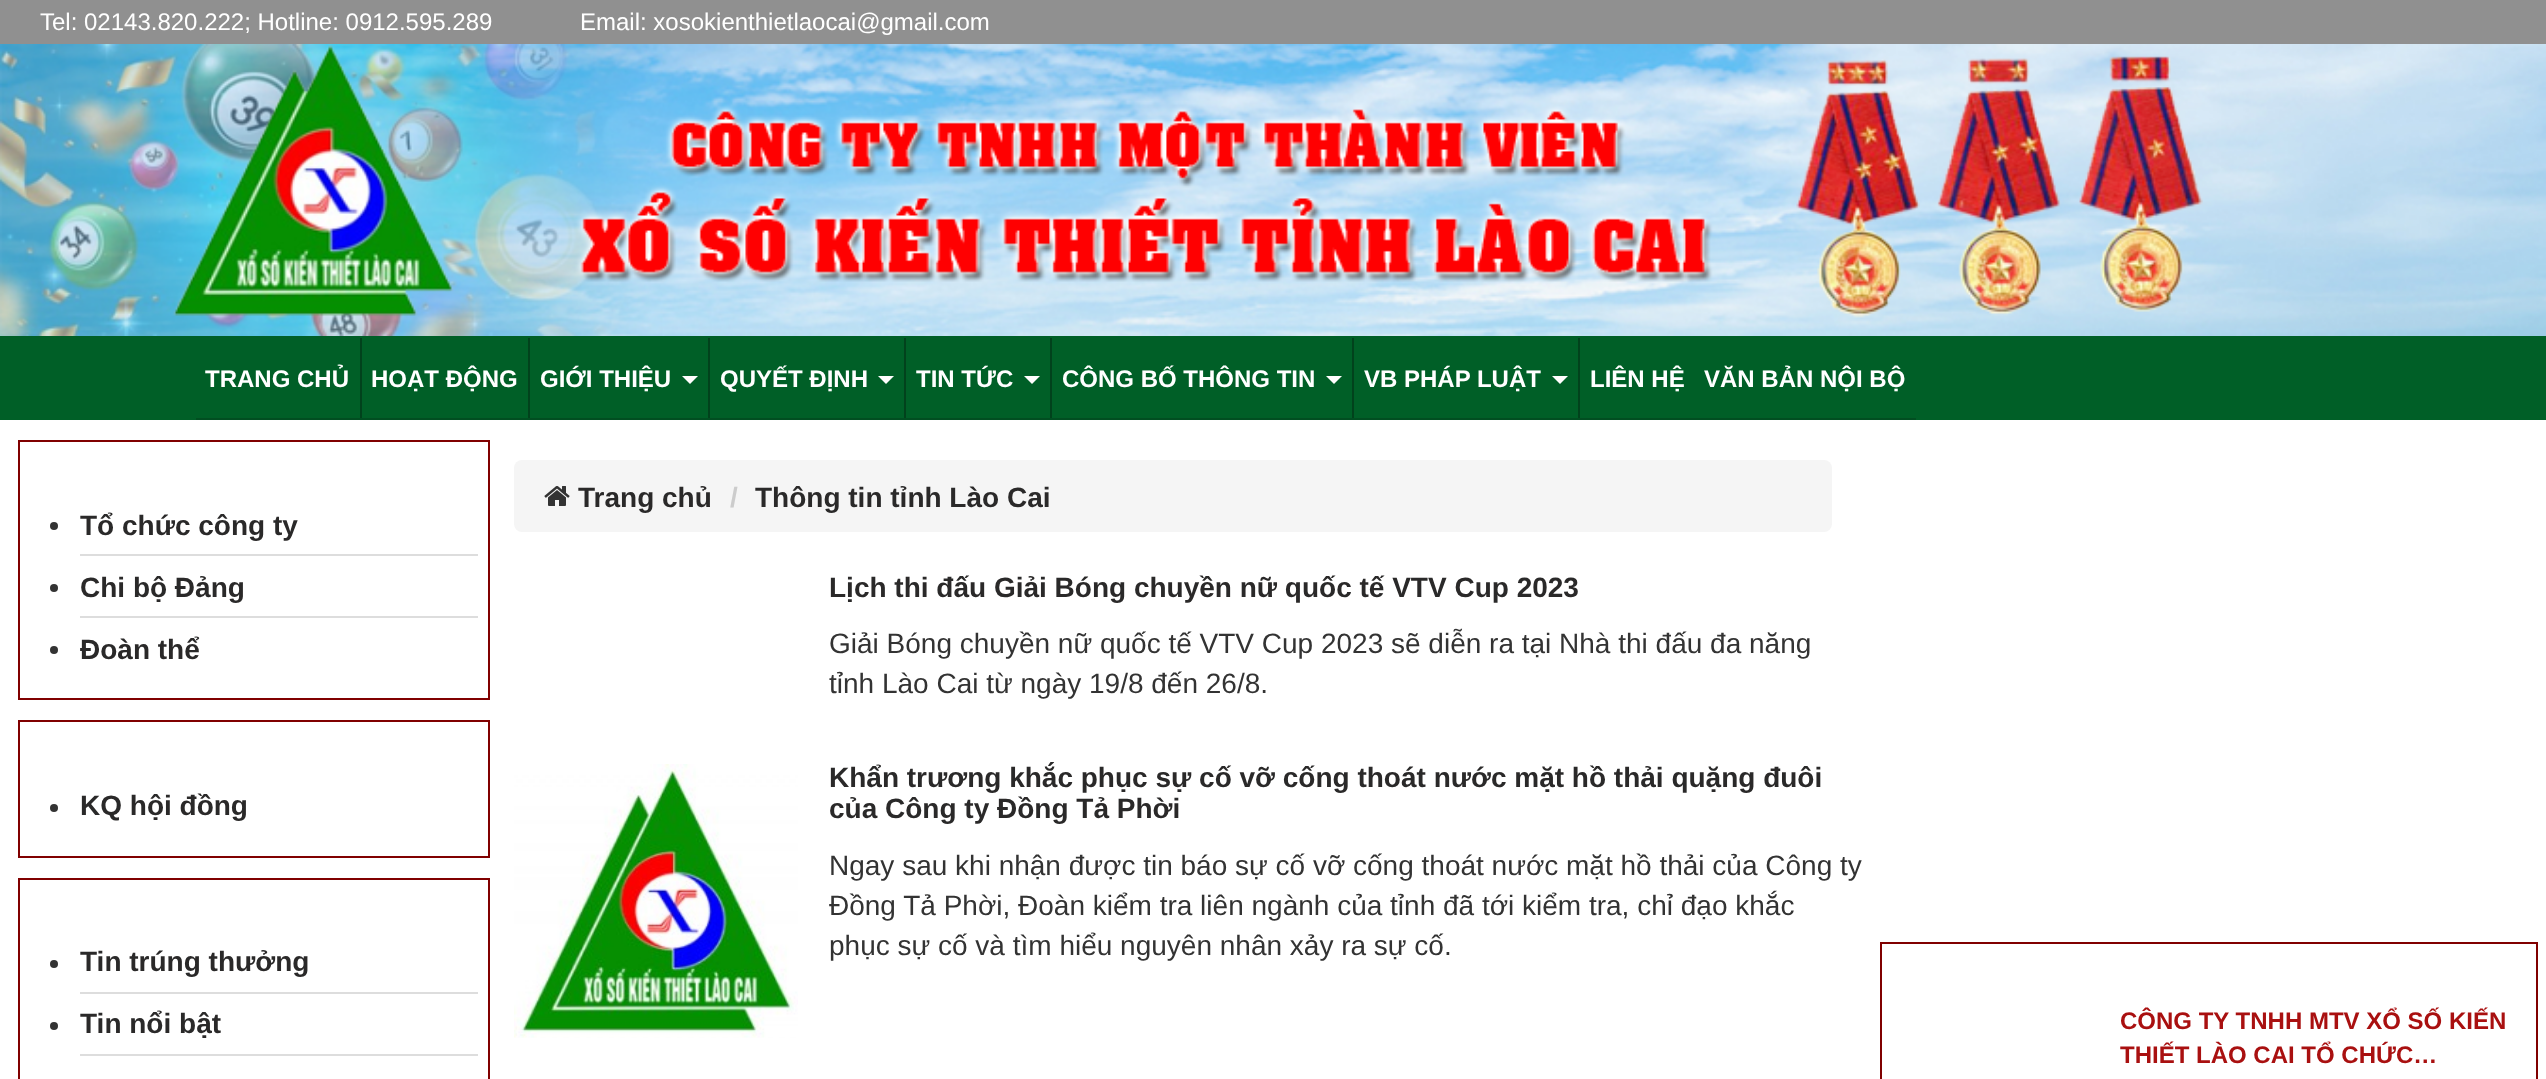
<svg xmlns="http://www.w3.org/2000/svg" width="2546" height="1079">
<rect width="100%" height="100%" fill="#fff"/>
<rect width="2546" height="44" fill="#909090"/>
<text x="40" y="30" style="font-family:Liberation Sans;font-size:24px;fill:#fff">Tel: 02143.820.222; Hotline: 0912.595.289</text>
<text x="580" y="30" style="font-family:Liberation Sans;font-size:24px;fill:#fff">Email: xosokienthietlaocai@gmail.com</text>
<image x="0" y="44" width="2546" height="292" href="media/1.png"/>
<rect y="336" width="2546" height="84" fill="#005f27"/>
<rect x="196" y="418" width="1720" height="2" fill="#014e21"/>
<rect x="360" y="338" width="2" height="80" fill="#01421c"/>
<text x="205" y="387" style="font-family:Liberation Sans;font-size:24px;font-weight:bold;fill:#fff">TRANG CHỦ</text>
<rect x="528" y="338" width="2" height="80" fill="#01421c"/>
<text x="371" y="387" style="font-family:Liberation Sans;font-size:24px;font-weight:bold;fill:#fff">HOẠT ĐỘNG</text>
<rect x="708" y="338" width="2" height="80" fill="#01421c"/>
<text x="540" y="387" style="font-family:Liberation Sans;font-size:24px;font-weight:bold;fill:#fff">GIỚI THIỆU</text>
<path d="M682 376h16l-8 8z" fill="#fff"/>
<rect x="904" y="338" width="2" height="80" fill="#01421c"/>
<text x="720" y="387" style="font-family:Liberation Sans;font-size:24px;font-weight:bold;fill:#fff">QUYẾT ĐỊNH</text>
<path d="M878 376h16l-8 8z" fill="#fff"/>
<rect x="1050" y="338" width="2" height="80" fill="#01421c"/>
<text x="916" y="387" style="font-family:Liberation Sans;font-size:24px;font-weight:bold;fill:#fff">TIN TỨC</text>
<path d="M1024 376h16l-8 8z" fill="#fff"/>
<rect x="1352" y="338" width="2" height="80" fill="#01421c"/>
<text x="1062" y="387" style="font-family:Liberation Sans;font-size:24px;font-weight:bold;fill:#fff">CÔNG BỐ THÔNG TIN</text>
<path d="M1326 376h16l-8 8z" fill="#fff"/>
<rect x="1578" y="338" width="2" height="80" fill="#01421c"/>
<text x="1364" y="387" style="font-family:Liberation Sans;font-size:24px;font-weight:bold;fill:#fff">VB PHÁP LUẬT</text>
<path d="M1552 376h16l-8 8z" fill="#fff"/>
<text x="1590" y="387" style="font-family:Liberation Sans;font-size:24px;font-weight:bold;fill:#fff">LIÊN HỆ</text>
<text x="1704" y="387" style="font-family:Liberation Sans;font-size:24px;font-weight:bold;fill:#fff">VĂN BẢN NỘI BỘ</text>
<rect x="19" y="441" width="470" height="258" fill="none" stroke="#800000" stroke-width="2"/>
<rect x="80" y="554" width="398" height="2" fill="#ddd"/>
<circle cx="54" cy="526" r="4" fill="#333"/>
<text x="80" y="535" style="font-family:Liberation Sans;font-size:28px;font-weight:bold;fill:#2a2929">Tổ chức công ty</text>
<rect x="80" y="616" width="398" height="2" fill="#ddd"/>
<circle cx="54" cy="588" r="4" fill="#333"/>
<text x="80" y="597" style="font-family:Liberation Sans;font-size:28px;font-weight:bold;fill:#2a2929">Chi bộ Đảng</text>
<circle cx="54" cy="650" r="4" fill="#333"/>
<text x="80" y="659" style="font-family:Liberation Sans;font-size:28px;font-weight:bold;fill:#2a2929">Đoàn thể</text>
<rect x="19" y="721" width="470" height="136" fill="none" stroke="#800000" stroke-width="2"/>
<circle cx="54" cy="808" r="4" fill="#333"/>
<text x="80" y="815" style="font-family:Liberation Sans;font-size:28px;font-weight:bold;fill:#2a2929">KQ hội đồng</text>
<rect x="19" y="879" width="470" height="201" fill="none" stroke="#800000" stroke-width="2"/>
<rect x="80" y="992" width="398" height="2" fill="#ddd"/>
<circle cx="54" cy="964" r="4" fill="#333"/>
<text x="80" y="971" style="font-family:Liberation Sans;font-size:28px;font-weight:bold;fill:#2a2929">Tin trúng thưởng</text>
<rect x="80" y="1054" width="398" height="2" fill="#ddd"/>
<circle cx="54" cy="1026" r="4" fill="#333"/>
<text x="80" y="1033" style="font-family:Liberation Sans;font-size:28px;font-weight:bold;fill:#2a2929">Tin nổi bật</text>
<rect x="514" y="460" width="1318" height="72" rx="8" fill="#f5f5f5"/>
<image x="544" y="486" width="26" height="20" href="media/2.png"/>
<text x="578" y="507" style="font-family:Liberation Sans;font-size:28px;font-weight:bold;fill:#2a2929">Trang chủ</text>
<text x="730" y="507" style="font-family:Liberation Sans;font-size:28px;font-weight:bold;fill:#ccc">/</text>
<text x="755" y="507" style="font-family:Liberation Sans;font-size:28px;font-weight:bold;fill:#2a2929">Thông tin tỉnh Lào Cai</text>
<text x="829" y="597" style="font-family:Liberation Sans;font-size:28px;font-weight:bold;fill:#2a2929">Lịch thi đấu Giải Bóng chuyền nữ quốc tế VTV Cup 2023</text>
<text x="829" y="653" style="font-family:Liberation Sans;font-size:28px;fill:#333">Giải Bóng chuyền nữ quốc tế VTV Cup 2023 sẽ diễn ra tại Nhà thi đấu đa năng</text>
<text x="829" y="693" style="font-family:Liberation Sans;font-size:28px;fill:#333">tỉnh Lào Cai từ ngày 19/8 đến 26/8.</text>
<image x="514" y="764" width="284" height="274" href="media/3.png"/>
<text x="829" y="787" style="font-family:Liberation Sans;font-size:28px;font-weight:bold;fill:#2a2929">Khẩn trương khắc phục sự cố vỡ cống thoát nước mặt hồ thải quặng đuôi</text>
<text x="829" y="818" style="font-family:Liberation Sans;font-size:28px;font-weight:bold;fill:#2a2929">của Công ty Đồng Tả Phời</text>
<text x="829" y="875" style="font-family:Liberation Sans;font-size:28px;fill:#333">Ngay sau khi nhận được tin báo sự cố vỡ cống thoát nước mặt hồ thải của Công ty</text>
<text x="829" y="915" style="font-family:Liberation Sans;font-size:28px;fill:#333">Đồng Tả Phời, Đoàn kiểm tra liên ngành của tỉnh đã tới kiểm tra, chỉ đạo khắc</text>
<text x="829" y="955" style="font-family:Liberation Sans;font-size:28px;fill:#333">phục sự cố và tìm hiểu nguyên nhân xảy ra sự cố.</text>
<rect x="1881" y="943" width="656" height="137" fill="none" stroke="#800000" stroke-width="2"/>
<text x="2120" y="1029" style="font-family:Liberation Sans;font-size:24px;font-weight:bold;fill:#a91010">CÔNG TY TNHH MTV XỔ SỐ KIẾN</text>
<text x="2120" y="1063" style="font-family:Liberation Sans;font-size:24px;font-weight:bold;fill:#a91010">THIẾT LÀO CAI TỔ CHỨC…</text>
</svg>
